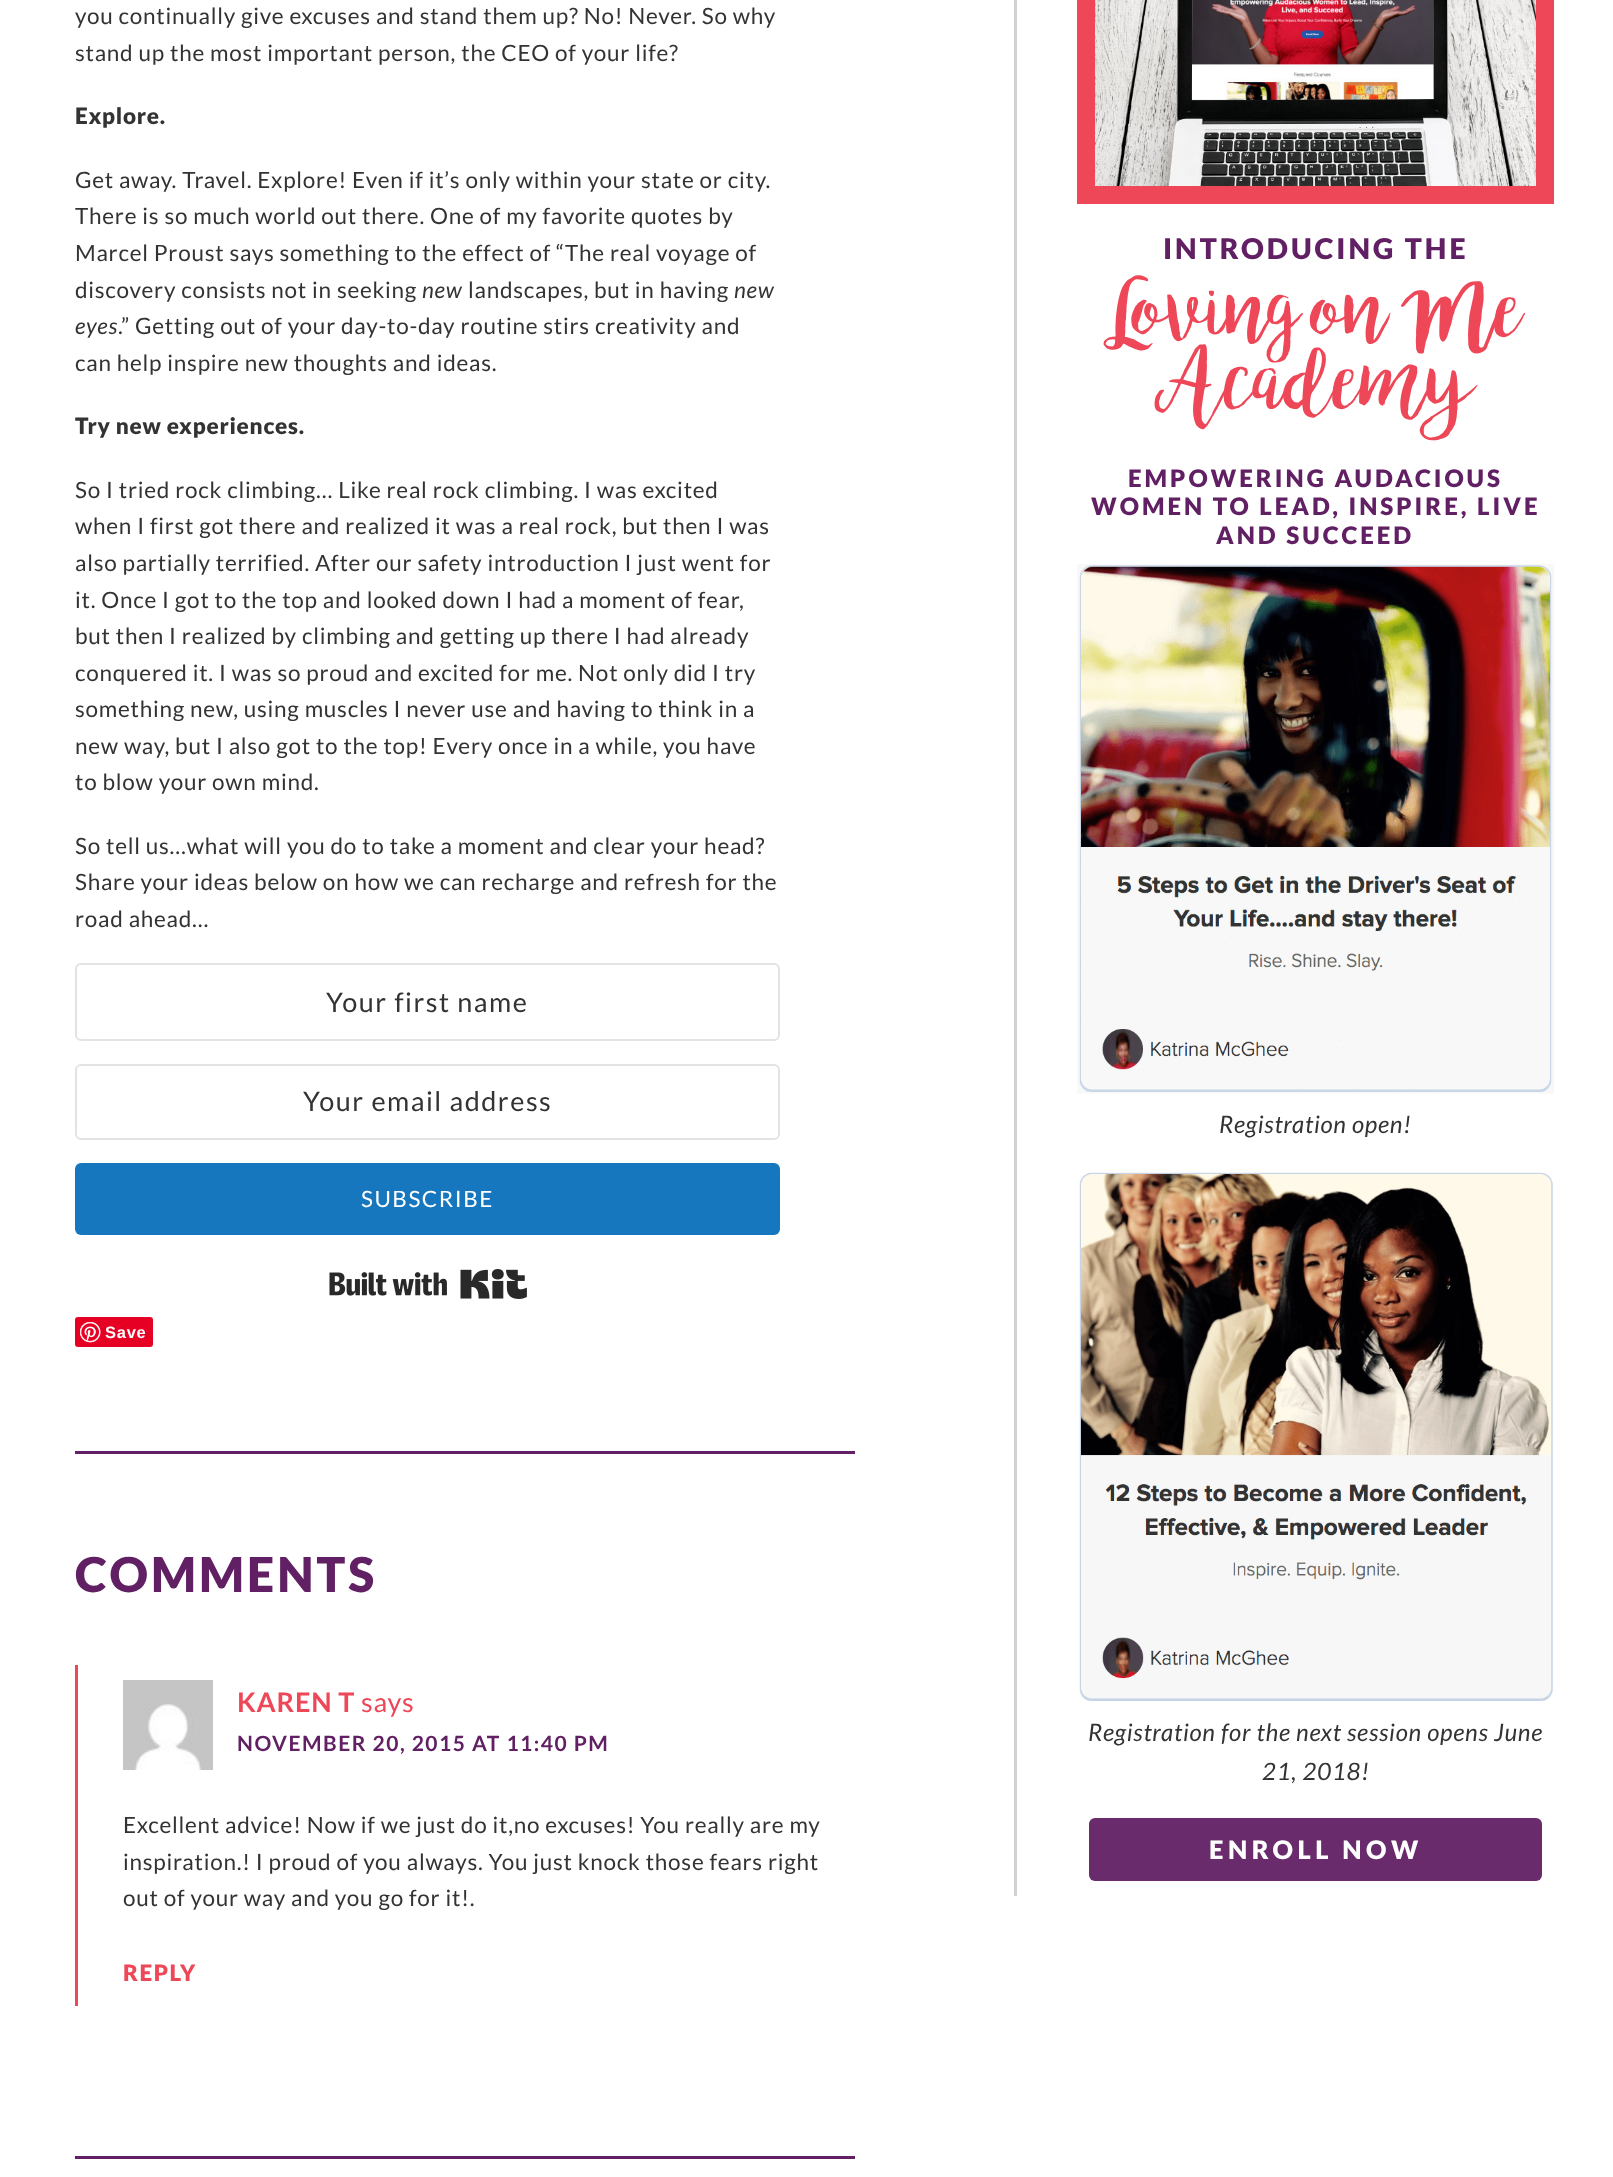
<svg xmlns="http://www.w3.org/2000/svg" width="1613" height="2177">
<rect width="100%" height="100%" fill="#fff"/>
<text x="75" y="24" style="font-family:Lato;font-size:22.5px;letter-spacing:0.75px;fill:#333">you continually give excuses and stand them up? No! Never. So why</text>
<text x="75" y="61" style="font-family:Lato;font-size:22.5px;letter-spacing:0.75px;fill:#333">stand up the most important person, the CEO of your life?</text>
<text x="75" y="124" style="font-family:Lato;font-size:22.5px;font-weight:900;letter-spacing:0.75px;fill:#333">Explore.</text>
<text x="75" y="188" style="font-family:Lato;font-size:22.5px;letter-spacing:0.75px;fill:#333">Get away. Travel. Explore! Even if it’s only within your state or city.</text>
<text x="75" y="224" style="font-family:Lato;font-size:22.5px;letter-spacing:0.75px;fill:#333">There is so much world out there. One of my favorite quotes by</text>
<text x="75" y="261" style="font-family:Lato;font-size:22.5px;letter-spacing:0.75px;fill:#333">Marcel Proust says something to the effect of “The real voyage of</text>
<text x="75" y="298" style="font-family:Lato;font-size:22.5px;letter-spacing:0.75px;fill:#333">discovery consists not in seeking</text>
<text x="422" y="298" style="font-family:Lato;font-size:22.5px;font-style:italic;letter-spacing:0.75px;fill:#333">new</text>
<text x="468" y="298" style="font-family:Lato;font-size:22.5px;letter-spacing:0.75px;fill:#333">landscapes, but in having</text>
<text x="734" y="298" style="font-family:Lato;font-size:22.5px;font-style:italic;letter-spacing:0.75px;fill:#333">new</text>
<text x="75" y="334" style="font-family:Lato;font-size:22.5px;font-style:italic;letter-spacing:0.75px;fill:#333">eyes</text>
<text x="118" y="334" style="font-family:Lato;font-size:22.5px;letter-spacing:0.75px;fill:#333">.” Getting out of your day-to-day routine stirs creativity and</text>
<text x="75" y="371" style="font-family:Lato;font-size:22.5px;letter-spacing:0.75px;fill:#333">can help inspire new thoughts and ideas.</text>
<text x="75" y="434" style="font-family:Lato;font-size:22.5px;font-weight:900;letter-spacing:0.75px;fill:#333">Try new experiences.</text>
<text x="75" y="498" style="font-family:Lato;font-size:22.5px;letter-spacing:0.75px;fill:#333">So I tried rock climbing… Like real rock climbing. I was excited</text>
<text x="75" y="534" style="font-family:Lato;font-size:22.5px;letter-spacing:0.75px;fill:#333">when I first got there and realized it was a real rock, but then I was</text>
<text x="75" y="571" style="font-family:Lato;font-size:22.5px;letter-spacing:0.75px;fill:#333">also partially terrified. After our safety introduction I just went for</text>
<text x="75" y="608" style="font-family:Lato;font-size:22.5px;letter-spacing:0.75px;fill:#333">it. Once I got to the top and looked down I had a moment of fear,</text>
<text x="75" y="644" style="font-family:Lato;font-size:22.5px;letter-spacing:0.75px;fill:#333">but then I realized by climbing and getting up there I had already</text>
<text x="75" y="681" style="font-family:Lato;font-size:22.5px;letter-spacing:0.75px;fill:#333">conquered it. I was so proud and excited for me. Not only did I try</text>
<text x="75" y="717" style="font-family:Lato;font-size:22.5px;letter-spacing:0.75px;fill:#333">something new, using muscles I never use and having to think in a</text>
<text x="75" y="754" style="font-family:Lato;font-size:22.5px;letter-spacing:0.75px;fill:#333">new way, but I also got to the top! Every once in a while, you have</text>
<text x="75" y="790" style="font-family:Lato;font-size:22.5px;letter-spacing:0.75px;fill:#333">to blow your own mind.</text>
<text x="75" y="854" style="font-family:Lato;font-size:22.5px;letter-spacing:0.75px;fill:#333">So tell us…what will you do to take a moment and clear your head?</text>
<text x="75" y="890" style="font-family:Lato;font-size:22.5px;letter-spacing:0.75px;fill:#333">Share your ideas below on how we can recharge and refresh for the</text>
<text x="75" y="927" style="font-family:Lato;font-size:22.5px;letter-spacing:0.75px;fill:#333">road ahead…</text>
<rect x="76" y="964" width="703" height="76" rx="5" fill="none" stroke="#e3e3e3" stroke-width="2"/>
<text x="326" y="1012" style="font-family:Lato;font-size:27px;letter-spacing:1.5px;fill:#333">Your first name</text>
<rect x="76" y="1065" width="703" height="74" rx="5" fill="none" stroke="#e3e3e3" stroke-width="2"/>
<text x="303" y="1111" style="font-family:Lato;font-size:27px;letter-spacing:1.5px;fill:#333">Your email address</text>
<rect x="75" y="1163" width="705" height="72" rx="6" fill="#1677be"/>
<text x="361" y="1207" style="font-family:Lato;font-size:22.5px;letter-spacing:1.5px;fill:#fff">SUBSCRIBE</text>
<image x="329" y="1269" width="198" height="30" href="media/1.png"/>
<rect x="75" y="1317" width="78" height="30" rx="3" fill="#e60023"/>
<image x="80" y="1322" width="21" height="21" href="media/2.png"/>
<text x="105" y="1338" style="font-family:Liberation Sans;font-size:16.5px;font-weight:bold;letter-spacing:0.75px;fill:#fff">Save</text>
<rect x="75" y="1451" width="780" height="3" fill="#612063"/>
<text x="75" y="1592" style="font-family:Lato;font-size:48px;font-weight:900;letter-spacing:3px;fill:#612063">COMMENTS</text>
<rect x="75" y="1665" width="3" height="341" fill="#ee4758"/>
<image x="123" y="1680" width="90" height="90" href="media/3.png"/>
<text x="237" y="1712" style="font-family:Lato;font-size:27px;font-weight:bold;letter-spacing:0.75px;fill:#ee4758">KAREN T</text>
<text x="361" y="1712" style="font-family:Lato;font-size:27px;letter-spacing:0.75px;fill:#ee4758">says</text>
<text x="237" y="1751" style="font-family:Lato;font-size:21px;font-weight:bold;letter-spacing:1.5px;fill:#612063">NOVEMBER 20, 2015 AT 11:40 PM</text>
<text x="123" y="1833" style="font-family:Lato;font-size:22.5px;letter-spacing:0.75px;fill:#333">Excellent advice! Now if we just do it,no excuses! You really are my</text>
<text x="123" y="1870" style="font-family:Lato;font-size:22.5px;letter-spacing:0.75px;fill:#333">inspiration.! I proud of you always. You just knock those fears right</text>
<text x="123" y="1906" style="font-family:Lato;font-size:22.5px;letter-spacing:0.75px;fill:#333">out of your way and you go for it!.</text>
<text x="123" y="1981" style="font-family:Lato;font-size:22.5px;font-weight:900;letter-spacing:1.5px;fill:#ee4758">REPLY</text>
<rect x="75" y="2156" width="780" height="3" fill="#612063"/>
<rect x="1014" width="3" height="1896" fill="#d2d2d2"/>
<rect x="1086" y="-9" width="459" height="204" fill="none" stroke="#ee4758" stroke-width="18"/>
<image x="1095" y="0" width="441" height="186" href="media/4.png"/>
<text x="1163" y="259" style="font-family:Lato;font-size:28.5px;font-weight:900;letter-spacing:3px;fill:#612063">INTRODUCING THE</text>
<text x="1107" y="340" style="font-family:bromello;font-size:90px;fill:#ee4758">Loving on Me</text>
<text x="1155" y="412" style="font-family:bromello;font-size:90px;fill:#ee4758">Academy</text>
<text x="1128" y="487" style="font-family:Lato;font-size:24px;font-weight:900;letter-spacing:3px;fill:#612063">EMPOWERING AUDACIOUS</text>
<text x="1091" y="515" style="font-family:Lato;font-size:24px;font-weight:900;letter-spacing:3px;fill:#612063">WOMEN TO LEAD, INSPIRE, LIVE</text>
<text x="1216" y="544" style="font-family:Lato;font-size:24px;font-weight:900;letter-spacing:3px;fill:#612063">AND SUCCEED</text>
<image x="1077" y="564" width="477" height="530" href="media/5.png"/>
<text x="1219" y="1133" style="font-family:Lato;font-size:24px;font-style:italic;letter-spacing:0.75px;fill:#333">Registration open!</text>
<image x="1079" y="1172" width="474" height="529" href="media/6.png"/>
<text x="1088" y="1741" style="font-family:Lato;font-size:24px;font-style:italic;letter-spacing:0.75px;fill:#333">Registration for the next session opens June</text>
<text x="1262" y="1780" style="font-family:Lato;font-size:24px;font-style:italic;letter-spacing:0.75px;fill:#333">21, 2018!</text>
<rect x="1089" y="1818" width="453" height="63" rx="6" fill="#692b6b"/>
<text x="1209" y="1859" style="font-family:Lato;font-size:25.5px;font-weight:900;letter-spacing:4.5px;fill:#fff">ENROLL NOW</text>
</svg>
